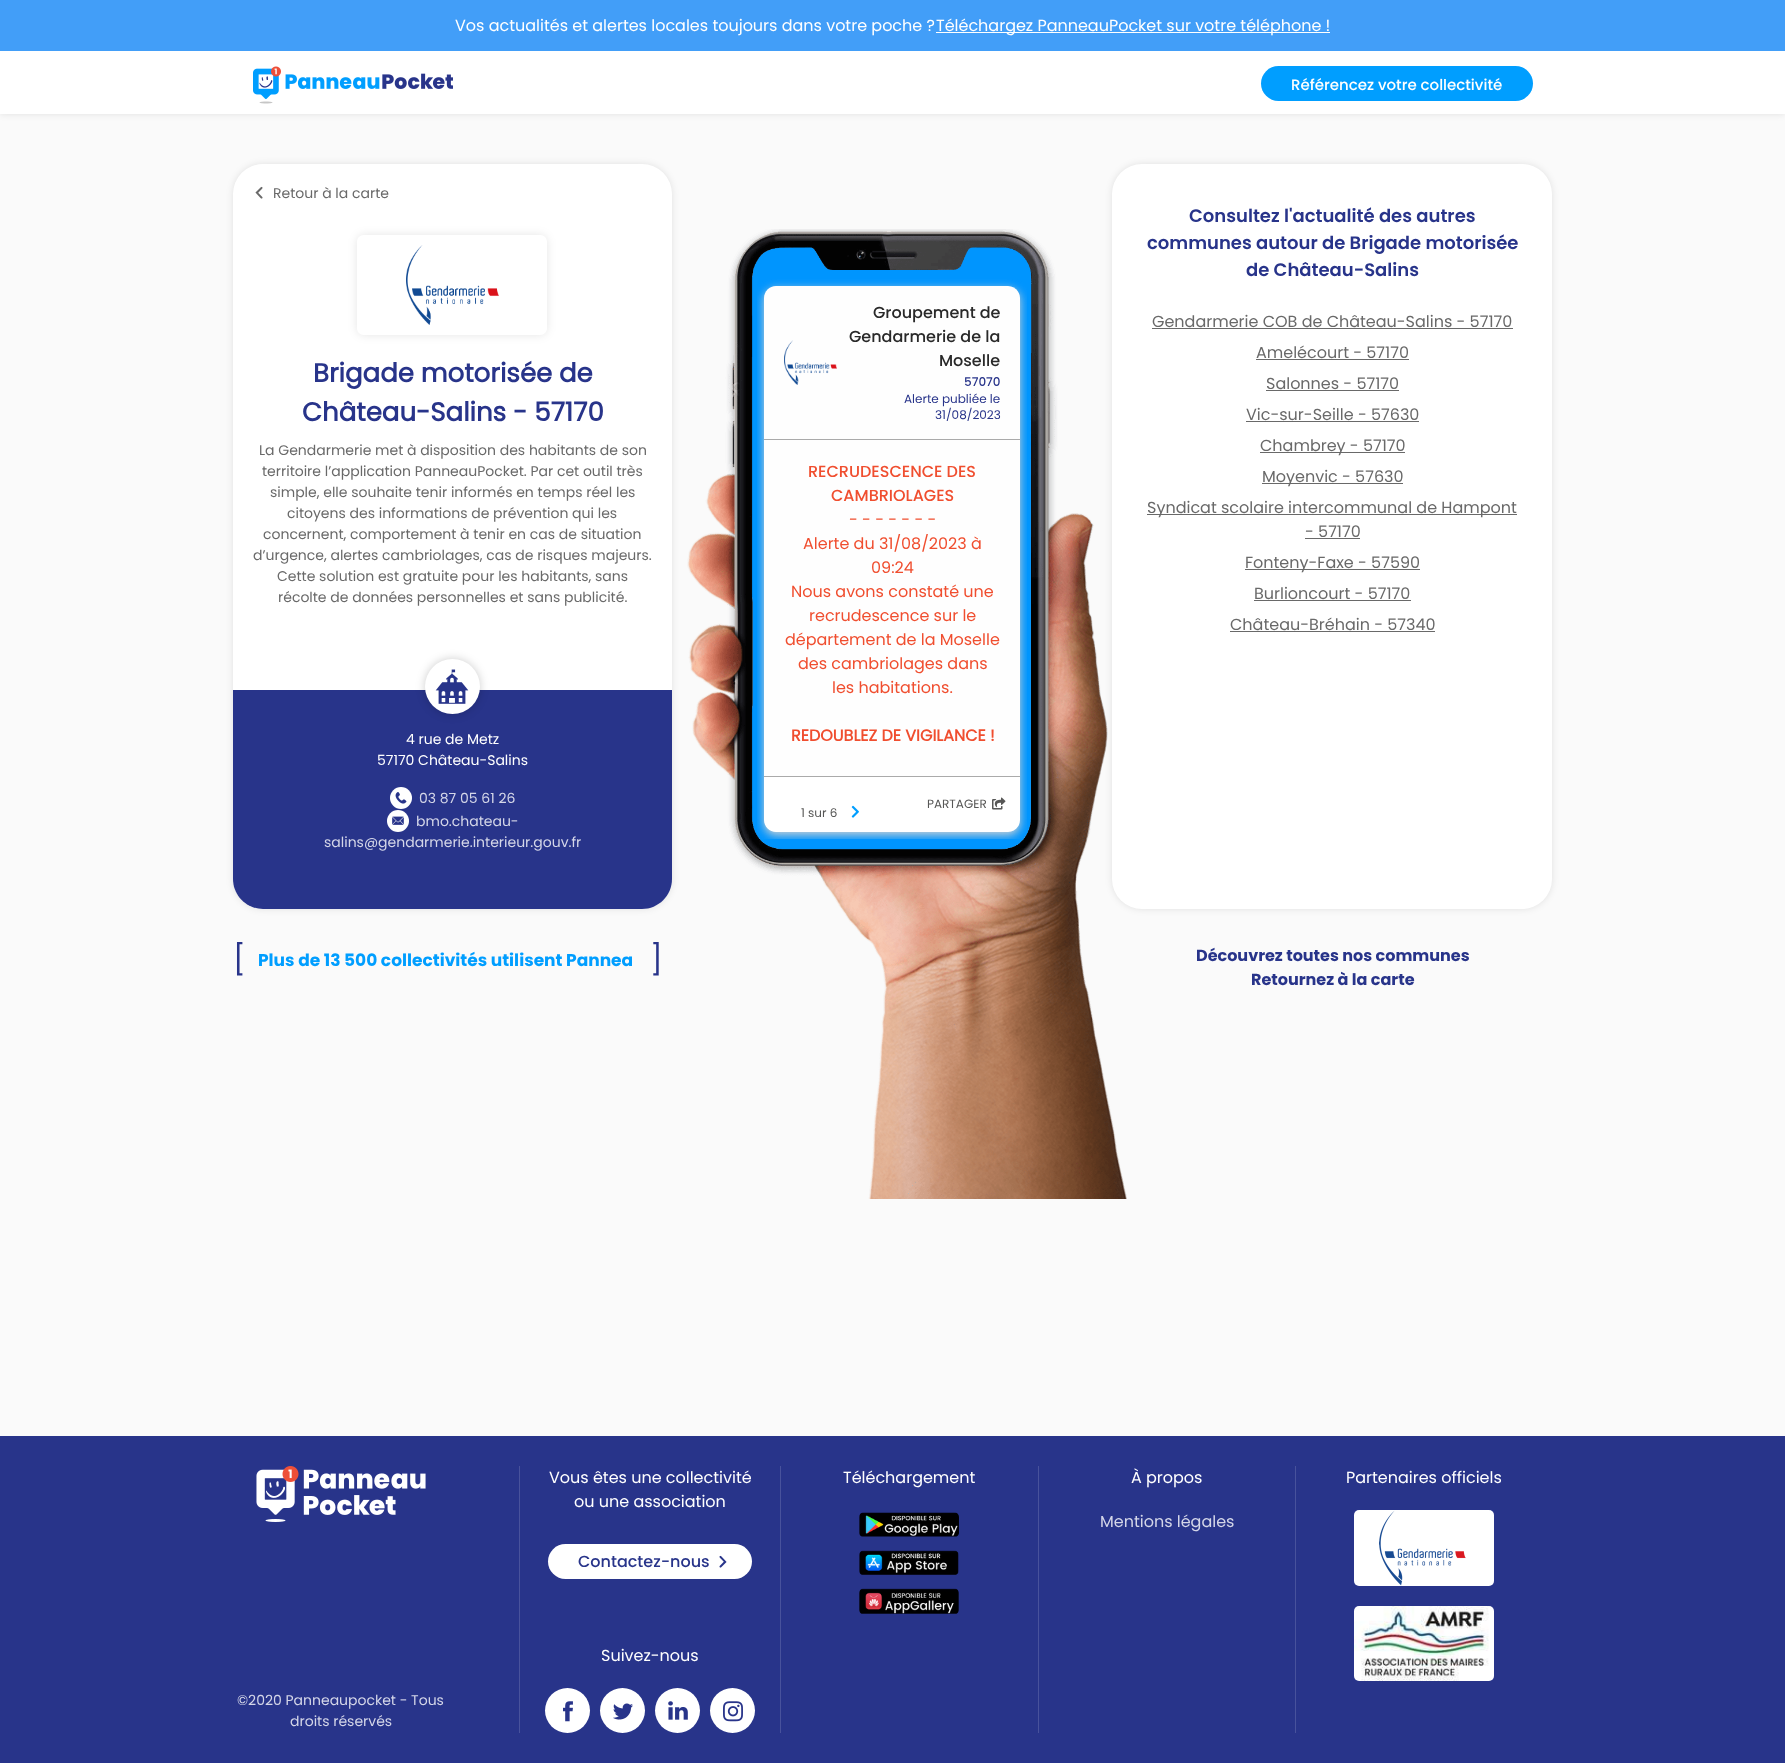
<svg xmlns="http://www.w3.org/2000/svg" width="1785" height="1763">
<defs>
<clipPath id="clip1"><path d="M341 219h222v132h-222zm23 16h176c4 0 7 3 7 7v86c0 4-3 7-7 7h-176c-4 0-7-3-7-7v-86c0-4 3-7 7-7z" clip-rule="evenodd"/></clipPath>
<clipPath id="clip2"><rect x="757" y="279" width="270" height="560"/></clipPath>
</defs>
<rect width="100%" height="100%" fill="#fafafa"/>
<rect width="1785" height="114" fill="#0000001a" filter="blur(3.5px)"/>
<rect y="51" width="1785" height="63" fill="#fff"/>
<rect width="1785" height="51" fill="#429ef8"/>
<text x="455" y="31" style="font-family:Poppins;font-size:16px;fill:#fff">Vos actualités et alertes locales toujours dans votre poche ?</text>
<rect x="936" y="32" width="394" height="1" fill="#fff"/>
<text x="936" y="31" style="font-family:Poppins;font-size:16px;fill:#fff">Téléchargez PanneauPocket sur votre téléphone !</text>
<image x="253" y="66" width="200" height="38" href="media/1.png"/>
<rect x="1261" y="66" width="272" height="35" rx="17.5" fill="#009eff"/>
<text x="1291" y="90" style="font-family:Poppins;font-size:15px;font-weight:500;fill:#fff">Référencez votre collectivité</text>
<rect x="233" y="164" width="439" height="745" rx="30" fill="#0000001a" filter="blur(3.5px)"/>
<rect x="233" y="164" width="439" height="745" rx="30" fill="#fff"/>
<image x="255" y="186" width="8" height="13" href="media/2.png"/>
<text x="273" y="198" style="font-family:Poppins;font-size:14px;fill:#696969">Retour à la carte</text>
<g clip-path="url(#clip1)">
<rect x="357" y="235" width="190" height="100" rx="7" fill="#0000001a" filter="blur(5px)"/>
</g>
<image x="406" y="245" width="93" height="80" href="media/3.png"/>
<text x="313" y="382" style="font-family:'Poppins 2';font-size:26px;font-weight:bold;fill:#28348a">Brigade motorisée de</text>
<text x="302" y="421" style="font-family:'Poppins 2';font-size:26px;font-weight:bold;fill:#28348a">Château-Salins - 57170</text>
<text x="259" y="455" style="font-family:Poppins;font-size:14px;fill:#696969">La Gendarmerie met à disposition des habitants de son</text>
<text x="262" y="476" style="font-family:Poppins;font-size:14px;fill:#696969">territoire l’application PanneauPocket. Par cet outil très</text>
<text x="270" y="497" style="font-family:Poppins;font-size:14px;fill:#696969">simple, elle souhaite tenir informés en temps réel les</text>
<text x="287" y="518" style="font-family:Poppins;font-size:14px;fill:#696969">citoyens des informations de prévention qui les</text>
<text x="263" y="539" style="font-family:Poppins;font-size:14px;fill:#696969">concernent, comportement à tenir en cas de situation</text>
<text x="253" y="560" style="font-family:Poppins;font-size:14px;fill:#696969">d’urgence, alertes cambriolages, cas de risques majeurs.</text>
<text x="277" y="581" style="font-family:Poppins;font-size:14px;fill:#696969">Cette solution est gratuite pour les habitants, sans</text>
<text x="278" y="602" style="font-family:Poppins;font-size:14px;fill:#696969">récolte de données personnelles et sans publicité.</text>
<path d="M233 690h439v189c0 16.5-13.5 30-30 30h-379c-16.5 0-30-13.5-30-30z" fill="#28348a"/>
<rect x="425" y="659" width="55" height="55" rx="27.5" fill="#00000033" filter="blur(5px)"/>
<circle cx="452.5" cy="686.5" r="27.5" fill="#fff"/>
<image x="435" y="669" width="34" height="35" href="media/4.png"/>
<text x="406" y="744" style="font-family:Poppins;font-size:14px;fill:#fff">4 rue de Metz</text>
<text x="377" y="765" style="font-family:Poppins;font-size:14px;fill:#fff">57170 Château-Salins</text>
<circle cx="401" cy="798" r="11" fill="#fff"/>
<image x="395" y="792" width="12" height="12" href="media/5.png"/>
<text x="419" y="803" style="font-family:Poppins;font-size:14px;fill:#d4d6e8">03 87 05 61 26</text>
<circle cx="398" cy="821" r="11" fill="#fff"/>
<image x="392" y="816" width="12" height="9" href="media/6.png"/>
<text x="416" y="826" style="font-family:Poppins;font-size:14px;fill:#d4d6e8">bmo.chateau-</text>
<text x="324" y="847" style="font-family:Poppins;font-size:14px;fill:#d4d6e8">salins@gendarmerie.interieur.gouv.fr</text>
<rect x="1112" y="164" width="440" height="745" rx="30" fill="#0000001a" filter="blur(3.5px)"/>
<rect x="1112" y="164" width="440" height="745" rx="30" fill="#fff"/>
<image x="687" y="229" width="440" height="970" href="media/7.png"/>
<g clip-path="url(#clip2)">
<rect x="764" y="289" width="256" height="546" rx="12" fill="#d3d3d3" filter="blur(5px)"/>
</g>
<path d="M776 286h232c6.5 0 12 5.5 12 12v142h-256v-142c0-6.5 5.5-12 12-12z" fill="#fefefe"/>
<rect x="764" y="439" width="256" height="1" fill="#aaa"/>
<image x="784" y="340" width="53" height="45" href="media/8.png"/>
<text x="873" y="318" style="font-family:Poppins;font-size:16px;font-weight:500;fill:#292929">Groupement de</text>
<text x="849" y="342" style="font-family:Poppins;font-size:16px;font-weight:500;fill:#292929">Gendarmerie de la</text>
<text x="939" y="366" style="font-family:Poppins;font-size:16px;font-weight:500;fill:#292929">Moselle</text>
<text x="964" y="386" style="font-family:Poppins;font-size:12px;font-weight:500;fill:#28348a">57070</text>
<text x="904" y="403" style="font-family:Poppins;font-size:12px;fill:#28348a">Alerte publiée le</text>
<text x="935" y="419" style="font-family:Poppins;font-size:12px;fill:#28348a">31/08/2023</text>
<rect x="764" y="440" width="256" height="336" fill="#fefefe"/>
<text x="808" y="477" style="font-family:Poppins;font-size:16px;font-weight:500;fill:#f04e2f">RECRUDESCENCE DES</text>
<text x="831" y="501" style="font-family:Poppins;font-size:16px;font-weight:500;fill:#f04e2f">CAMBRIOLAGES</text>
<text x="849" y="525" style="font-family:Poppins;font-size:16px;fill:#f04e2f">- - - - - - -</text>
<text x="803" y="549" style="font-family:Poppins;font-size:16px;fill:#f04e2f">Alerte du 31/08/2023 à</text>
<text x="871" y="573" style="font-family:Poppins;font-size:16px;fill:#f04e2f">09:24</text>
<text x="791" y="597" style="font-family:Poppins;font-size:16px;fill:#f04e2f">Nous avons constaté une</text>
<text x="809" y="621" style="font-family:Poppins;font-size:16px;fill:#f04e2f">recrudescence sur le</text>
<text x="785" y="645" style="font-family:Poppins;font-size:16px;fill:#f04e2f">département de la Moselle</text>
<text x="798" y="669" style="font-family:Poppins;font-size:16px;fill:#f04e2f">des cambriolages dans</text>
<text x="832" y="693" style="font-family:Poppins;font-size:16px;fill:#f04e2f">les habitations.</text>
<text x="791" y="741" style="font-family:'Poppins 2';font-size:16px;font-weight:bold;fill:#f04e2f">REDOUBLEZ DE VIGILANCE !</text>
<path d="M764 776h256v44c0 6.5-5.5 12-12 12h-232c-6.5 0-12-5.5-12-12z" fill="#fff"/>
<rect x="764" y="776" width="256" height="1" fill="#aaa"/>
<text x="927" y="808" style="font-family:Poppins;font-size:12px;fill:#575756">PARTAGER</text>
<image x="992" y="797" width="14" height="13" href="media/9.png"/>
<text x="801" y="817" style="font-family:Poppins;font-size:12px;fill:#575756">1 sur 6</text>
<image x="851" y="805" width="8" height="13" href="media/10.png"/>
<text x="1189" y="222" style="font-family:Poppins;font-size:18px;font-weight:600;fill:#28348a">Consultez l'actualité des autres</text>
<text x="1147" y="249" style="font-family:Poppins;font-size:18px;font-weight:600;fill:#28348a">communes autour de Brigade motorisée</text>
<text x="1246" y="276" style="font-family:Poppins;font-size:18px;font-weight:600;fill:#28348a">de Château-Salins</text>
<text x="1152" y="327" style="font-family:Poppins;font-size:16px;fill:#696969">Gendarmerie COB de Château-Salins - 57170</text>
<rect x="1152" y="328" width="361" height="1" fill="#696969"/>
<text x="1256" y="358" style="font-family:Poppins;font-size:16px;fill:#696969">Amelécourt - 57170</text>
<rect x="1256" y="359" width="153" height="1" fill="#696969"/>
<text x="1266" y="389" style="font-family:Poppins;font-size:16px;fill:#696969">Salonnes - 57170</text>
<rect x="1266" y="390" width="133" height="1" fill="#696969"/>
<text x="1246" y="420" style="font-family:Poppins;font-size:16px;fill:#696969">Vic-sur-Seille - 57630</text>
<rect x="1246" y="421" width="173" height="1" fill="#696969"/>
<rect x="1260" y="452" width="145" height="1" fill="#696969"/>
<text x="1260" y="451" style="font-family:Poppins;font-size:16px;fill:#696969">Chambrey - 57170</text>
<rect x="1262" y="483" width="141" height="1" fill="#696969"/>
<text x="1262" y="482" style="font-family:Poppins;font-size:16px;fill:#696969">Moyenvic - 57630</text>
<rect x="1147" y="514" width="370" height="1" fill="#696969"/>
<text x="1147" y="513" style="font-family:Poppins;font-size:16px;fill:#696969">Syndicat scolaire intercommunal de Hampont</text>
<text x="1305" y="537" style="font-family:Poppins;font-size:16px;fill:#696969">- 57170</text>
<rect x="1305" y="538" width="55" height="1" fill="#696969"/>
<rect x="1245" y="569" width="175" height="1" fill="#696969"/>
<text x="1245" y="568" style="font-family:Poppins;font-size:16px;fill:#696969">Fonteny-Faxe - 57590</text>
<text x="1254" y="599" style="font-family:Poppins;font-size:16px;fill:#696969">Burlioncourt - 57170</text>
<rect x="1254" y="600" width="157" height="1" fill="#696969"/>
<text x="1230" y="630" style="font-family:Poppins;font-size:16px;fill:#696969">Château-Bréhain - 57340</text>
<rect x="1230" y="631" width="205" height="1" fill="#696969"/>
<text x="233" y="970" style="font-family:Poppins;font-size:30px;fill:#28348a">[</text>
<text x="258" y="966" style="font-family:Poppins;font-size:17px;font-weight:bold;fill:#009eff">Plus de 13 500 collectivités utilisent Pannea</text>
<text x="650" y="970" style="font-family:Poppins;font-size:30px;fill:#28348a">]</text>
<text x="1196" y="961" style="font-family:Poppins;font-size:16px;font-weight:bold;fill:#28348a">Découvrez toutes nos communes</text>
<text x="1251" y="985" style="font-family:Poppins;font-size:16px;font-weight:bold;fill:#28348a">Retournez à la carte</text>
<rect y="1436" width="1785" height="327" fill="#28348a"/>
<rect x="780" y="1466" width="1" height="267" fill="#48529c"/>
<text x="549" y="1483" style="font-family:Poppins;font-size:16px;fill:#fff">Vous êtes une collectivité</text>
<text x="574" y="1507" style="font-family:Poppins;font-size:16px;fill:#fff">ou une association</text>
<rect x="548" y="1544" width="204" height="35" rx="17.5" fill="#fff"/>
<text x="578" y="1567" style="font-family:Poppins;font-size:16px;font-weight:500;fill:#28348a">Contactez-nous</text>
<image x="719" y="1555" width="8" height="13" href="media/11.png"/>
<text x="601" y="1661" style="font-family:Poppins;font-size:16px;fill:#fff">Suivez-nous</text>
<circle cx="567.5" cy="1710.5" r="22.5" fill="#fff"/>
<image x="563" y="1701" width="10" height="21" href="media/12.png"/>
<circle cx="622.5" cy="1710.5" r="22.5" fill="#fff"/>
<image x="613" y="1703" width="20" height="17" href="media/13.png"/>
<circle cx="677.5" cy="1710.5" r="22.5" fill="#fff"/>
<image x="668" y="1701" width="20" height="19" href="media/14.png"/>
<circle cx="732.5" cy="1710.5" r="22.5" fill="#fff"/>
<image x="723" y="1701" width="20" height="21" href="media/15.png"/>
<rect x="1038" y="1466" width="1" height="267" fill="#48529c"/>
<text x="843" y="1483" style="font-family:Poppins;font-size:16px;fill:#fff">Téléchargement</text>
<image x="859" y="1512" width="100" height="25" href="media/16.png"/>
<image x="859" y="1550" width="100" height="25" href="media/17.png"/>
<image x="859" y="1588" width="100" height="26" href="media/18.png"/>
<rect x="1295" y="1466" width="1" height="267" fill="#48529c"/>
<text x="1131" y="1483" style="font-family:Poppins;font-size:16px;fill:#fff">À propos</text>
<text x="1100" y="1527" style="font-family:Poppins;font-size:16px;fill:#d4d6e8">Mentions légales</text>
<text x="1346" y="1483" style="font-family:Poppins;font-size:16px;fill:#fff">Partenaires officiels</text>
<image x="1354" y="1510" width="140" height="76" href="media/19.png"/>
<image x="1354" y="1606" width="140" height="75" href="media/20.png"/>
<rect x="519" y="1466" width="1" height="267" fill="#48529c"/>
<image x="256" y="1466" width="170" height="56" href="media/21.png"/>
<text x="237" y="1705" style="font-family:Poppins;font-size:14px;fill:#d4d6e8">©2020 Panneaupocket - Tous</text>
<text x="290" y="1726" style="font-family:Poppins;font-size:14px;fill:#d4d6e8">droits réservés</text>
</svg>
